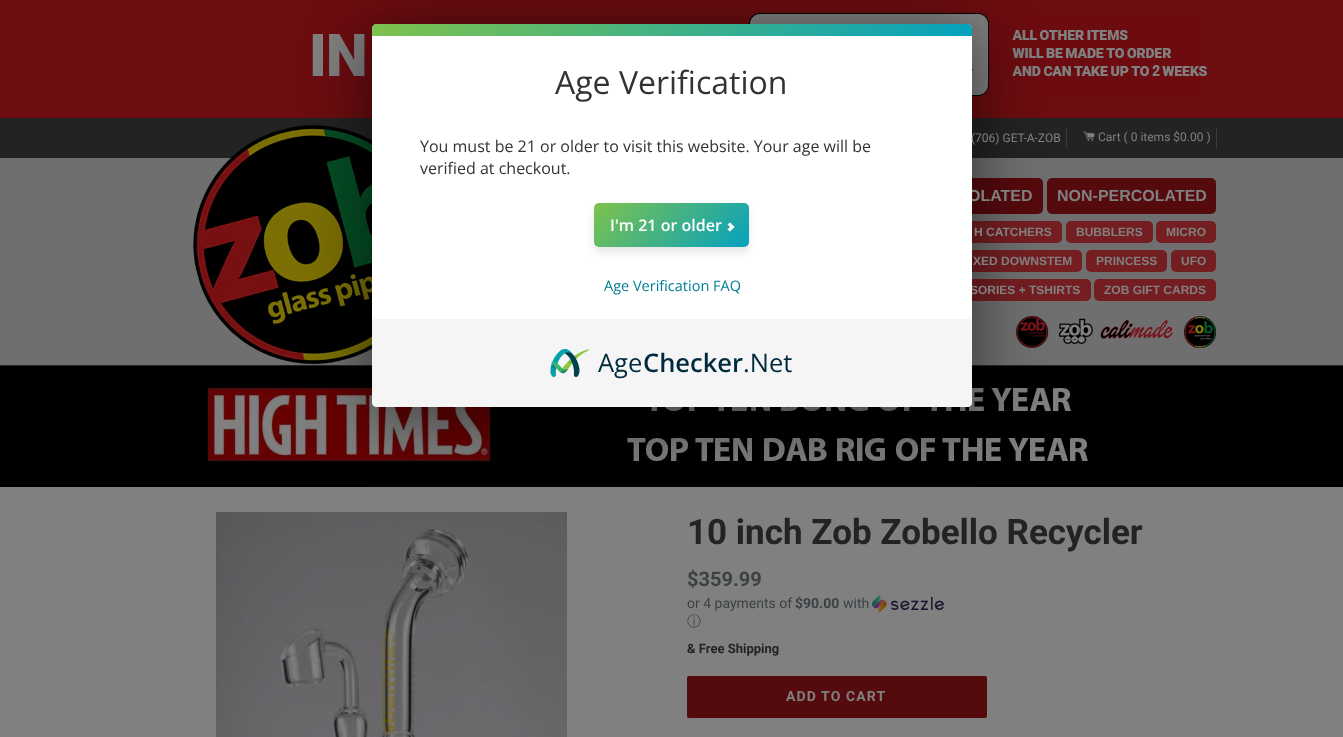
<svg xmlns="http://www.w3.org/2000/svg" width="1343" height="737">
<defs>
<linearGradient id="g1" gradientUnits="userSpaceOnUse" x1="519" y1="-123" x2="825" y2="183"><stop offset="0" stop-color="#7fc24c"/><stop offset="1" stop-color="#04a1bf"/></linearGradient>
<linearGradient id="g2" gradientUnits="userSpaceOnUse" x1="622" y1="175" x2="721" y2="275"><stop offset="0" stop-color="#7fc24c"/><stop offset="1" stop-color="#04a1bf"/></linearGradient>
</defs>
<rect width="100%" height="100%" fill="#808080"/>
<rect width="1343" height="118" fill="#6c0d10"/>
<image x="312" y="13" width="895" height="83" href="media/2.png"/>
<rect y="158" width="1343" height="207" fill="#6f6f6f"/>
<rect y="365" width="1343" height="1" fill="#232323"/>
<rect y="118" width="1343" height="40" fill="#232323"/>
<rect x="1066" y="129" width="1" height="18" fill="#3c3c3c"/>
<image x="193" y="125" width="179" height="239" href="media/4.png"/>
<rect x="914" y="178" width="129" height="36" rx="5" fill="#550a0d"/>
<rect x="1047" y="178" width="169" height="36" rx="5" fill="#550a0d"/>
<rect x="947" y="221" width="115" height="22" rx="5" fill="#741e21"/>
<rect x="1066" y="221" width="87" height="22" rx="5" fill="#741e21"/>
<rect x="952" y="250" width="130" height="22" rx="5" fill="#741e21"/>
<rect x="918" y="279" width="173" height="22" rx="5" fill="#741e21"/>
<image x="1016" y="316" width="200" height="32" href="media/5.png"/>
<rect y="366" width="1343" height="121" fill="#000"/>
<image x="207" y="382" width="881" height="81" href="media/6.png"/>
<image x="216" y="512" width="351" height="225" href="media/7.png"/>
<rect x="369" y="31" width="606" height="389" rx="8" fill="#00000080" filter="blur(32px)"/>
<text x="968" y="201" style="font-family:Liberation Sans;font-size:16px;font-weight:bold;fill:#808080">OLATED</text>
<text x="970" y="294" style="font-family:Liberation Sans;font-size:12px;font-weight:bold;fill:#808080">SORIES + TSHIRTS</text>
<rect x="372" y="24" width="600" height="383" rx="5" fill="#fff"/>
<path d="M377 24h590c3 0 5 2 5 5v7h-600v-7c0-3 2-5 5-5z" fill="url(#g1)"/>
<text x="555" y="94" style="font-family:Open Sans;font-size:32px;fill:#333">Age Verification</text>
<text x="420" y="152" style="font-family:Open Sans;font-size:16px;fill:#333">You must be 21 or older to visit this website. Your age will be</text>
<text x="420" y="174" style="font-family:Open Sans;font-size:16px;fill:#333">verified at checkout.</text>
<rect x="594" y="208" width="155" height="44" rx="5" fill="#0000001a" filter="blur(4px)"/>
<rect x="594" y="203" width="155" height="44" rx="5" fill="url(#g2)"/>
<text x="610" y="231" style="font-family:Open Sans;font-size:16px;font-weight:600;fill:#fff">I'm 21 or older</text>
<path d="M727.5 224.5l2.5-2l4.5 4.5l-2.5 2z" fill="#fff"/>
<path d="M727.5 229.5l4.5-4.5l2.5 2l-4.5 4.5z" fill="#fff"/>
<text x="604" y="291" style="font-family:Open Sans;font-size:14.5px;fill:#037d96">Age Verification FAQ</text>
<path d="M372 319h600v83c0 3-2 5-5 5h-590c-3 0-5-2-5-5z" fill="#f5f5f5"/>
<image x="550" y="349" width="40" height="28" href="media/1.png"/>
<text x="598" y="372" style="font-family:Open Sans;font-size:25.5px;fill:#002b3e">Age</text>
<text x="643" y="372" style="font-family:Open Sans;font-size:25.5px;font-weight:600;fill:#002b3e">Checker</text>
<text x="743" y="372" style="font-family:Open Sans;font-size:25.5px;fill:#002b3e">.Net</text>
<text x="971" y="142" style="font-family:Roboto;font-size:12px;fill:#808080">(706) GET-A-ZOB</text>
<rect x="1216" y="128" width="1" height="20" fill="#3c3c3c"/>
<image x="1083" y="131" width="12" height="10" href="media/3.png"/>
<text x="1098" y="141" style="font-family:Roboto;font-size:12px;fill:#808080">Cart ( 0 items $0.00 )</text>
<text x="1057" y="201" style="font-family:Liberation Sans;font-size:16px;font-weight:bold;fill:#808080">NON-PERCOLATED</text>
<text x="974" y="236" style="font-family:Liberation Sans;font-size:12px;font-weight:bold;fill:#808080">H CATCHERS</text>
<text x="1076" y="236" style="font-family:Liberation Sans;font-size:12px;font-weight:bold;fill:#808080">BUBBLERS</text>
<rect x="1156" y="221" width="60" height="22" rx="5" fill="#741e21"/>
<text x="1166" y="236" style="font-family:Liberation Sans;font-size:12px;font-weight:bold;fill:#808080">MICRO</text>
<text x="973" y="265" style="font-family:Liberation Sans;font-size:12px;font-weight:bold;fill:#808080">XED DOWNSTEM</text>
<rect x="1086" y="250" width="81" height="22" rx="5" fill="#741e21"/>
<text x="1096" y="265" style="font-family:Liberation Sans;font-size:12px;font-weight:bold;fill:#808080">PRINCESS</text>
<rect x="1171" y="250" width="45" height="22" rx="5" fill="#741e21"/>
<text x="1181" y="265" style="font-family:Liberation Sans;font-size:12px;font-weight:bold;fill:#808080">UFO</text>
<rect x="1094" y="279" width="122" height="22" rx="5" fill="#741e21"/>
<text x="1104" y="294" style="font-family:Liberation Sans;font-size:12px;font-weight:bold;fill:#808080">ZOB GIFT CARDS</text>
<text x="687" y="544" style="font-family:Roboto;font-size:35px;font-weight:bold;fill:#232323">10 inch Zob Zobello Recycler</text>
<text x="687" y="586" style="font-family:Roboto;font-size:20px;font-weight:bold;fill:#3c4144">$359.99</text>
<text x="687" y="608" style="font-family:Roboto;font-size:14px;fill:#3c4144">or 4 payments of</text>
<text x="795" y="608" style="font-family:Roboto;font-size:14px;font-weight:bold;fill:#3c4144">$90.00</text>
<text x="843" y="608" style="font-family:Roboto;font-size:14px;fill:#3c4144">with</text>
<image x="872" y="595" width="72" height="18" href="media/8.png"/>
<text x="687" y="626" style="font-family:WenQuanYi Zen Hei;font-size:14px;font-weight:500;fill:#3c4144">ⓘ</text>
<text x="687" y="653" style="font-family:Roboto;font-size:13px;font-weight:bold;fill:#232323">&amp; Free Shipping</text>
<rect x="687" y="676" width="300" height="42" rx="2" fill="#550a0d"/>
<text x="786" y="701" style="font-family:Roboto;font-size:14px;font-weight:bold;letter-spacing:1.1px;fill:#808080">ADD TO CART</text>
</svg>
